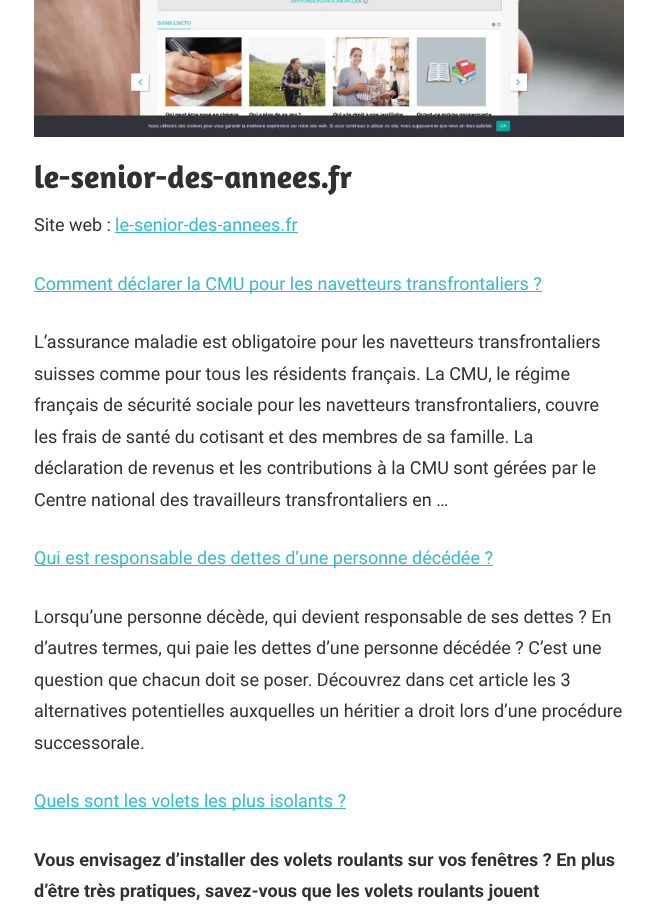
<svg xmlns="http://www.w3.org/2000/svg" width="658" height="908">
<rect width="100%" height="100%" fill="#fff"/>
<image x="34" y="0" width="590" height="137" href="media/1.png"/>
<text x="34" y="188" style="font-family:Amaranth;font-size:32px;font-weight:bold;fill:#303030">le-senior-des-annees.fr</text>
<text x="34" y="231" style="font-family:Roboto;font-size:18px;fill:#303030">Site web :</text>
<text x="115" y="231" style="font-family:Roboto;font-size:18px;fill:#3bc">le-senior-des-annees.fr</text>
<rect x="115" y="232" width="183" height="1" fill="#3bc"/>
<rect x="34" y="291" width="508" height="1" fill="#3bc"/>
<text x="34" y="290" style="font-family:Roboto;font-size:18px;fill:#3bc">Comment déclarer la CMU pour les navetteurs transfrontaliers ?</text>
<text x="34" y="348" style="font-family:Roboto;font-size:18px;fill:#303030">L’assurance maladie est obligatoire pour les navetteurs transfrontaliers</text>
<text x="34" y="380" style="font-family:Roboto;font-size:18px;fill:#303030">suisses comme pour tous les résidents français. La CMU, le régime</text>
<text x="34" y="411" style="font-family:Roboto;font-size:18px;fill:#303030">français de sécurité sociale pour les navetteurs transfrontaliers, couvre</text>
<text x="34" y="443" style="font-family:Roboto;font-size:18px;fill:#303030">les frais de santé du cotisant et des membres de sa famille. La</text>
<text x="34" y="474" style="font-family:Roboto;font-size:18px;fill:#303030">déclaration de revenus et les contributions à la CMU sont gérées par le</text>
<text x="34" y="506" style="font-family:Roboto;font-size:18px;fill:#303030">Centre national des travailleurs transfrontaliers en …</text>
<rect x="34" y="565" width="459" height="1" fill="#3bc"/>
<text x="34" y="564" style="font-family:Roboto;font-size:18px;fill:#3bc">Qui est responsable des dettes d’une personne décédée ?</text>
<text x="34" y="623" style="font-family:Roboto;font-size:18px;fill:#303030">Lorsqu’une personne décède, qui devient responsable de ses dettes ? En</text>
<text x="34" y="654" style="font-family:Roboto;font-size:18px;fill:#303030">d’autres termes, qui paie les dettes d’une personne décédée ? C’est une</text>
<text x="34" y="686" style="font-family:Roboto;font-size:18px;fill:#303030">question que chacun doit se poser. Découvrez dans cet article les 3</text>
<text x="34" y="717" style="font-family:Roboto;font-size:18px;fill:#303030">alternatives potentielles auxquelles un héritier a droit lors d’une procédure</text>
<text x="34" y="749" style="font-family:Roboto;font-size:18px;fill:#303030">successorale.</text>
<rect x="34" y="808" width="312" height="1" fill="#3bc"/>
<text x="34" y="807" style="font-family:Roboto;font-size:18px;fill:#3bc">Quels sont les volets les plus isolants ?</text>
<text x="34" y="866" style="font-family:Roboto;font-size:18px;font-weight:bold;fill:#303030">Vous envisagez d’installer des volets roulants sur vos fenêtres ? En plus</text>
<text x="34" y="897" style="font-family:Roboto;font-size:18px;font-weight:bold;fill:#303030">d’être très pratiques, savez-vous que les volets roulants jouent</text>
</svg>
